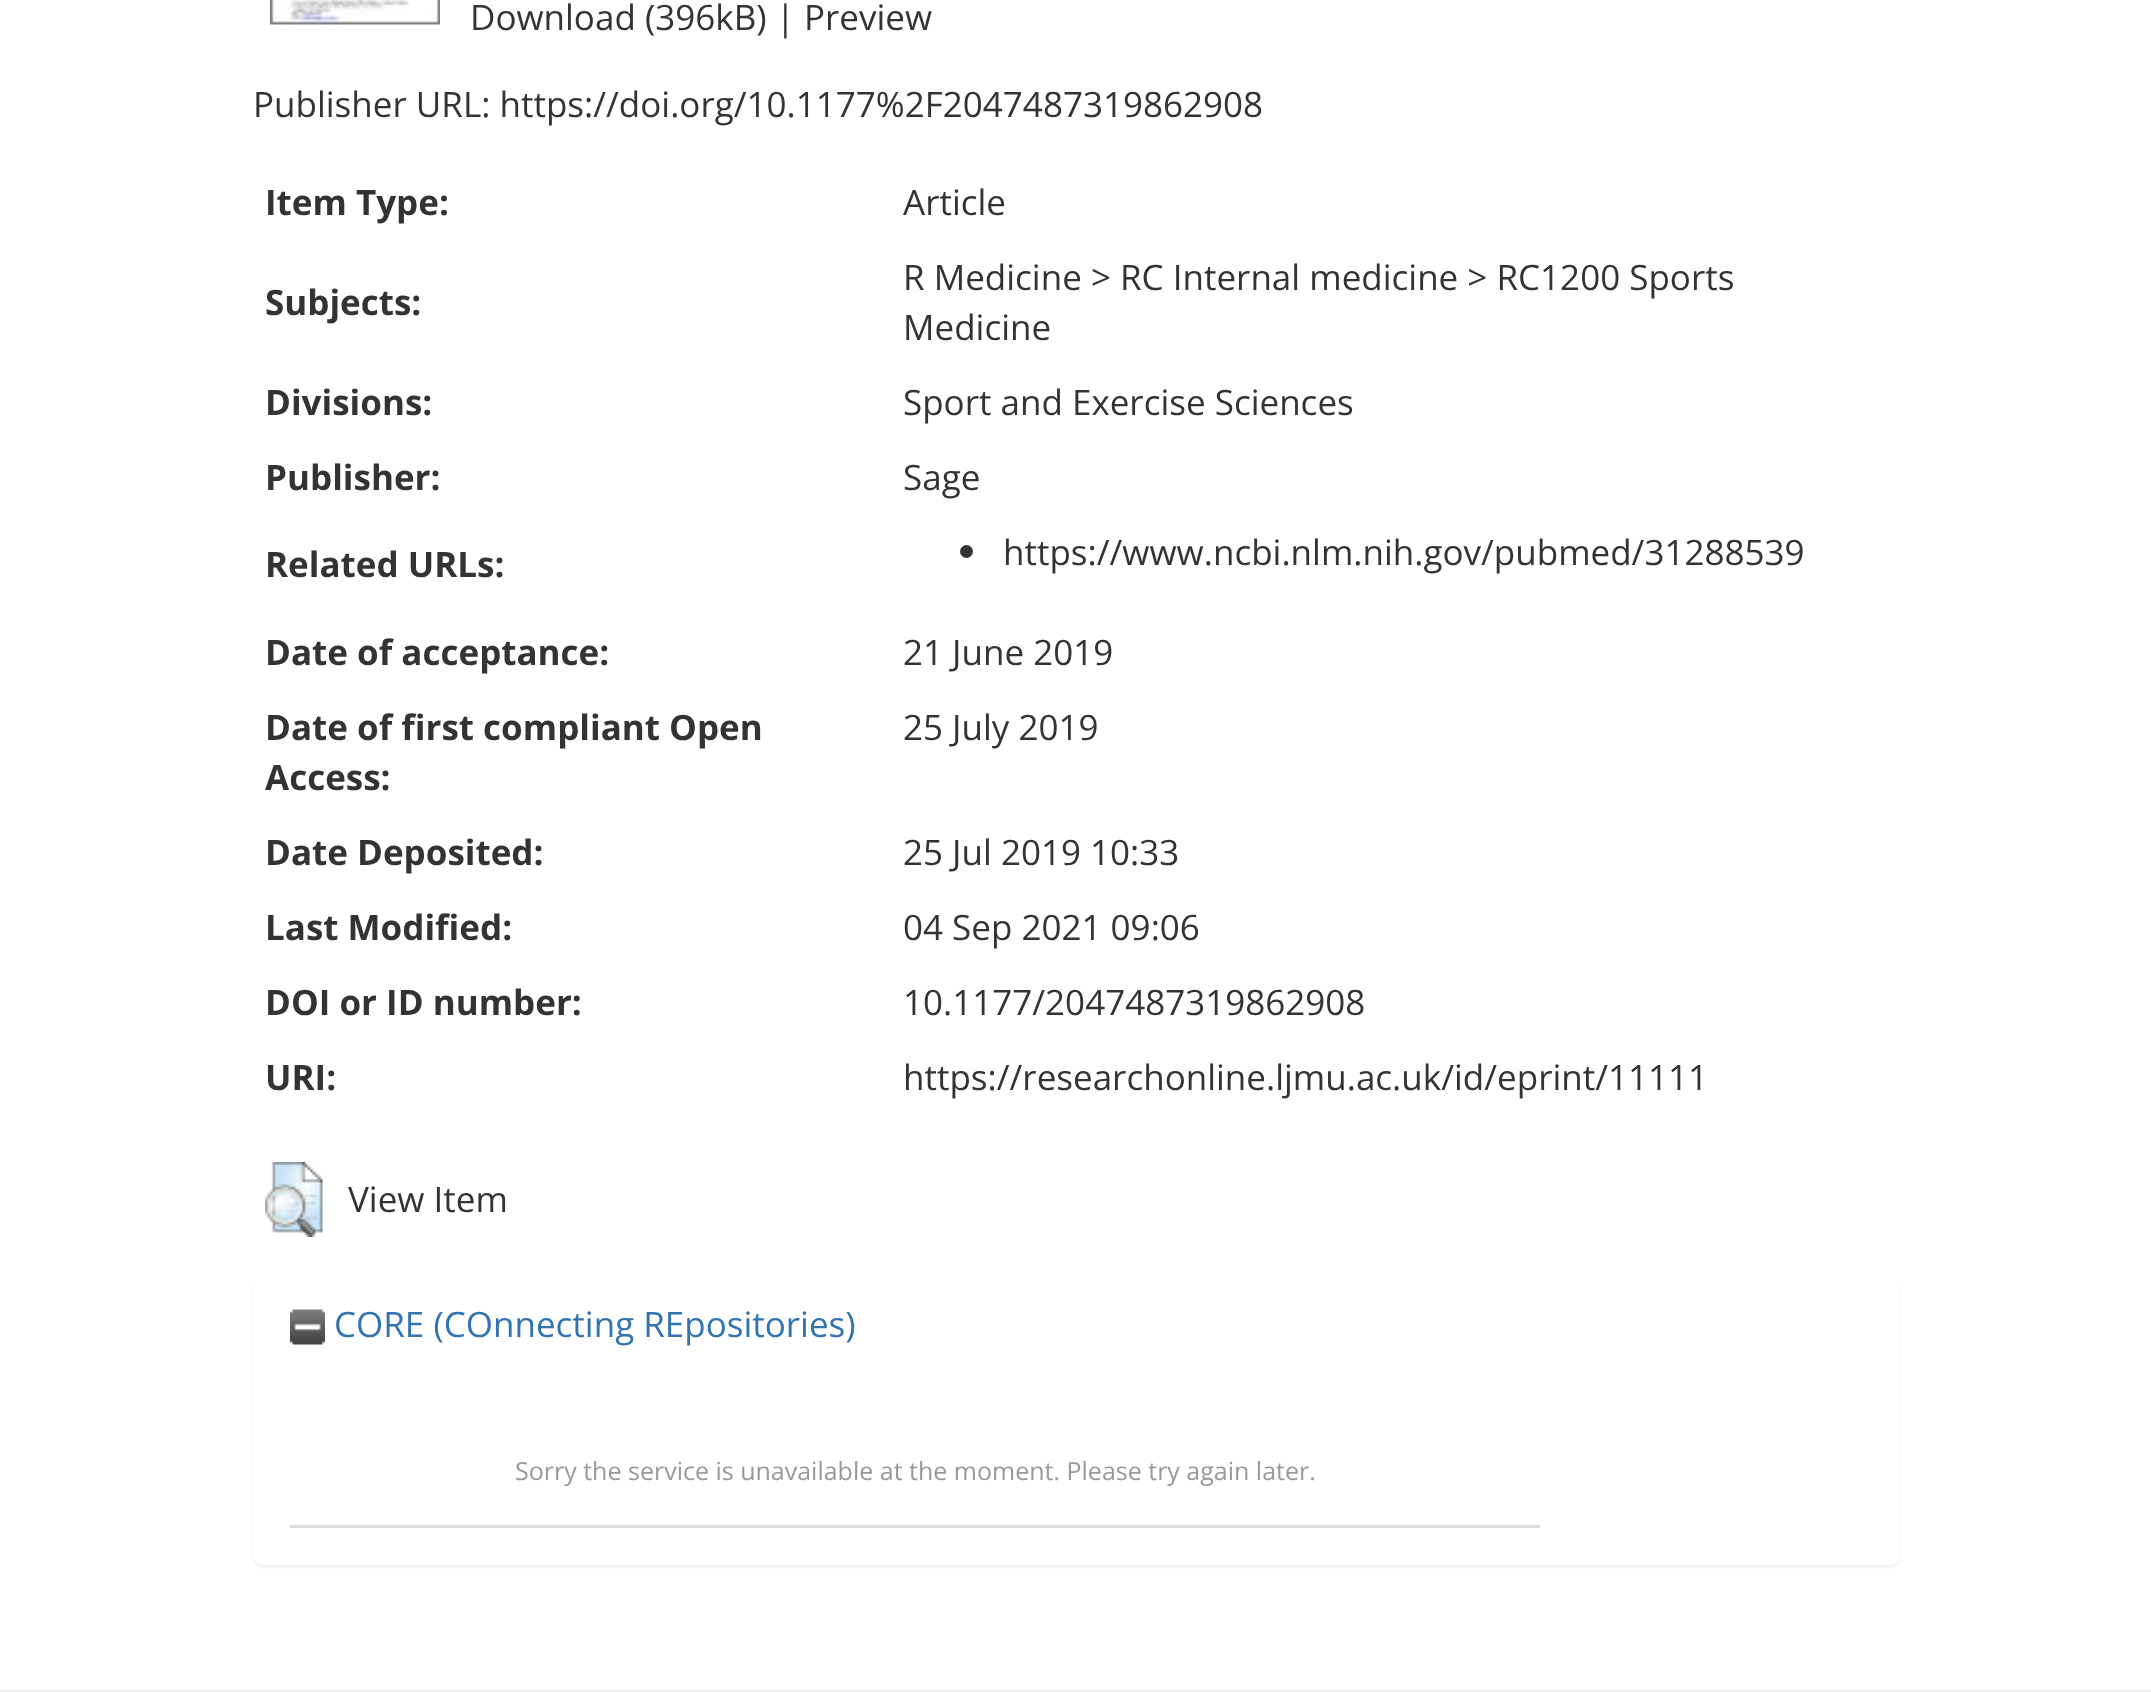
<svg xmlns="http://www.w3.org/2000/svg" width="2151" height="1692">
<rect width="100%" height="100%" fill="#fff"/>
<image x="270" y="0" width="170" height="25" href="media/1.png"/>
<text x="470" y="30" style="font-family:Open Sans;font-size:35px;fill:#333">Download (396kB) | Preview</text>
<text x="253" y="117" style="font-family:Open Sans;font-size:35px;fill:#333">Publisher URL: https://doi.org/10.1177%2F2047487319862908</text>
<text x="265" y="215" style="font-family:Open Sans;font-size:35px;font-weight:bold;fill:#333">Item Type:</text>
<text x="903" y="215" style="font-family:Open Sans;font-size:35px;fill:#333">Article</text>
<text x="265" y="315" style="font-family:Open Sans;font-size:35px;font-weight:bold;fill:#333">Subjects:</text>
<text x="903" y="290" style="font-family:Open Sans;font-size:35px;fill:#333">R Medicine &gt; RC Internal medicine &gt; RC1200 Sports</text>
<text x="903" y="340" style="font-family:Open Sans;font-size:35px;fill:#333">Medicine</text>
<text x="265" y="415" style="font-family:Open Sans;font-size:35px;font-weight:bold;fill:#333">Divisions:</text>
<text x="903" y="415" style="font-family:Open Sans;font-size:35px;fill:#333">Sport and Exercise Sciences</text>
<text x="265" y="490" style="font-family:Open Sans;font-size:35px;font-weight:bold;fill:#333">Publisher:</text>
<text x="903" y="490" style="font-family:Open Sans;font-size:35px;fill:#333">Sage</text>
<text x="265" y="577" style="font-family:Open Sans;font-size:35px;font-weight:bold;fill:#333">Related URLs:</text>
<circle cx="966.5" cy="551.5" r="6.5" fill="#333"/>
<text x="1003" y="565" style="font-family:Open Sans;font-size:35px;fill:#333">https://www.ncbi.nlm.nih.gov/pubmed/31288539</text>
<text x="265" y="665" style="font-family:Open Sans;font-size:35px;font-weight:bold;fill:#333">Date of acceptance:</text>
<text x="903" y="665" style="font-family:Open Sans;font-size:35px;fill:#333">21 June 2019</text>
<text x="265" y="740" style="font-family:Open Sans;font-size:35px;font-weight:bold;fill:#333">Date of first compliant Open</text>
<text x="265" y="790" style="font-family:Open Sans;font-size:35px;font-weight:bold;fill:#333">Access:</text>
<text x="903" y="740" style="font-family:Open Sans;font-size:35px;fill:#333">25 July 2019</text>
<text x="265" y="865" style="font-family:Open Sans;font-size:35px;font-weight:bold;fill:#333">Date Deposited:</text>
<text x="903" y="865" style="font-family:Open Sans;font-size:35px;fill:#333">25 Jul 2019 10:33</text>
<text x="265" y="940" style="font-family:Open Sans;font-size:35px;font-weight:bold;fill:#333">Last Modified:</text>
<text x="903" y="940" style="font-family:Open Sans;font-size:35px;fill:#333">04 Sep 2021 09:06</text>
<text x="265" y="1015" style="font-family:Open Sans;font-size:35px;font-weight:bold;fill:#333">DOI or ID number:</text>
<text x="903" y="1015" style="font-family:Open Sans;font-size:35px;fill:#333">10.1177/2047487319862908</text>
<text x="265" y="1090" style="font-family:Open Sans;font-size:35px;font-weight:bold;fill:#333">URI:</text>
<text x="903" y="1090" style="font-family:Open Sans;font-size:35px;fill:#333">https://researchonline.ljmu.ac.uk/id/eprint/11111</text>
<image x="265" y="1162" width="58" height="75" href="media/2.png"/>
<text x="348" y="1212" style="font-family:Open Sans;font-size:35px;fill:#333">View Item</text>
<rect x="253" y="1278" width="1647" height="290" rx="10" fill="#0000000d" filter="blur(1px)"/>
<rect x="253" y="1275" width="1647" height="290" rx="10" fill="#fff"/>
<image x="290" y="1309" width="35" height="36" href="media/3.png"/>
<text x="334" y="1337" style="font-family:Open Sans;font-size:35px;fill:#3174af">CORE (COnnecting REpositories)</text>
<rect x="290" y="1525" width="1250" height="3" fill="#ddd"/>
<text x="515" y="1480" style="font-family:Open Sans;font-size:25px;fill:#999">Sorry the service is unavailable at the moment. Please try again later.</text>
<rect y="1690" width="2151" height="2" fill="#eee"/>
</svg>
